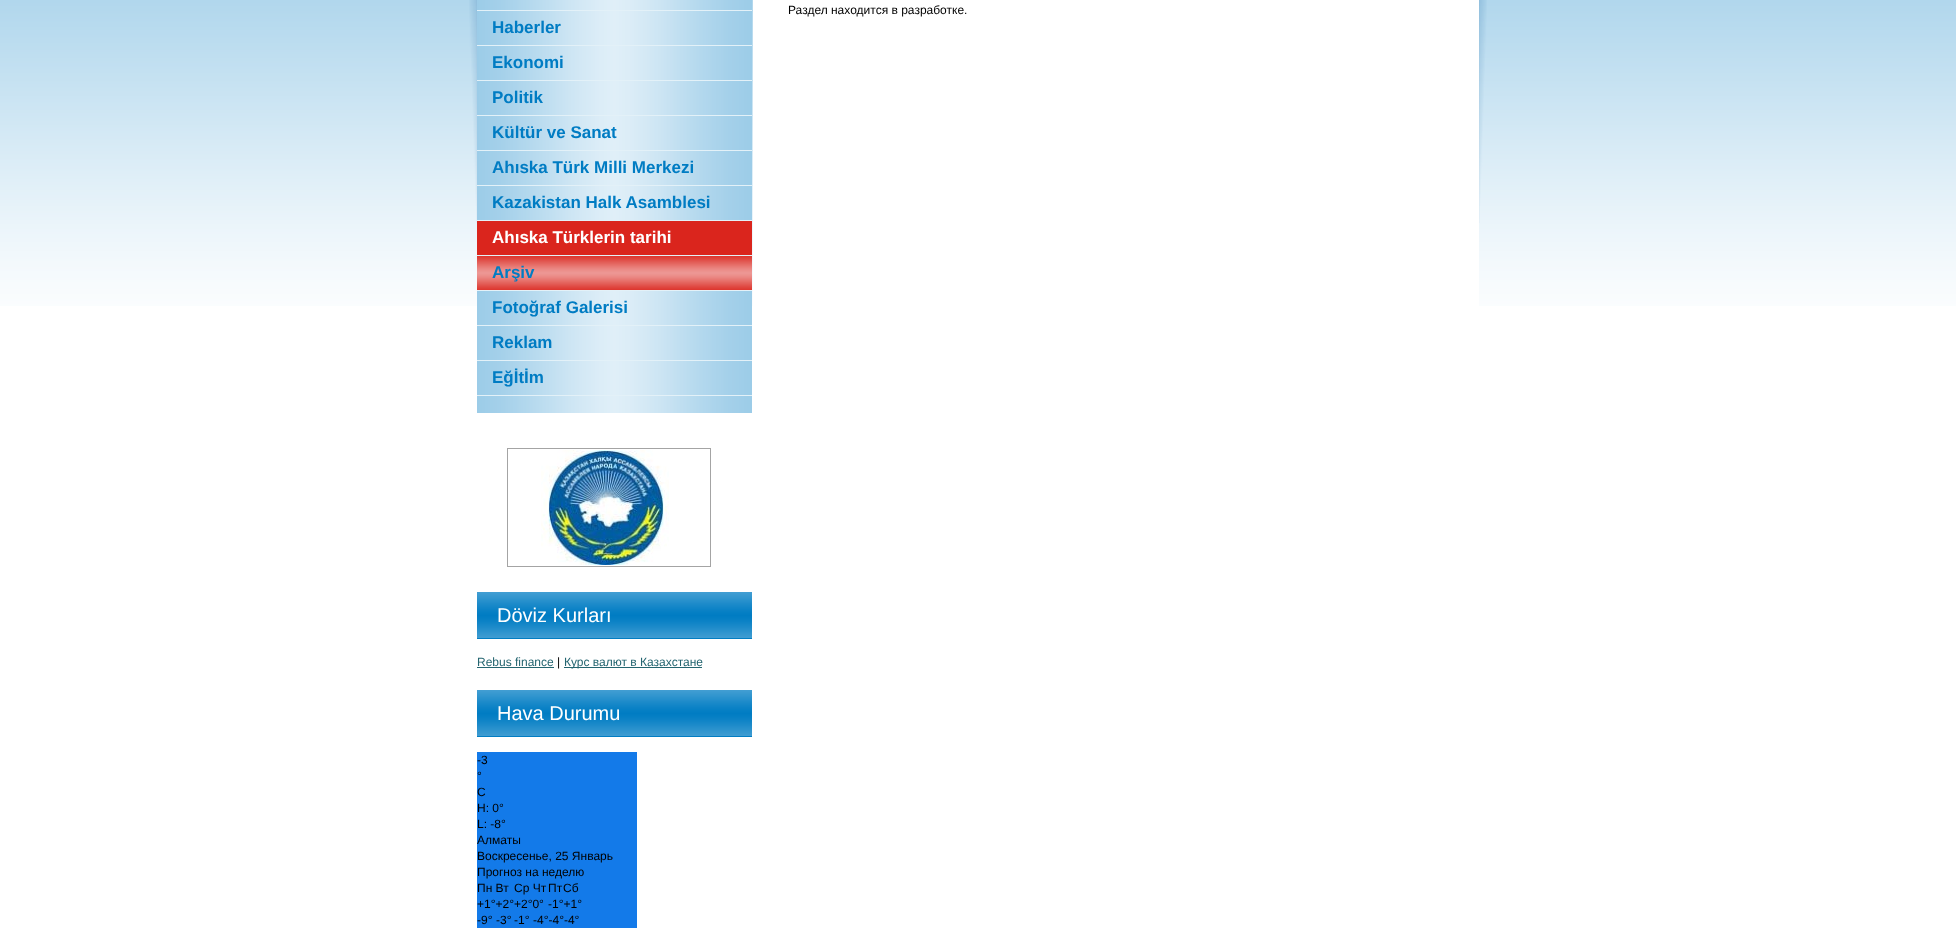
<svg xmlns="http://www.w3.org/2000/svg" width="1956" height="933">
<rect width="100%" height="100%" fill="#fff"/>
<image x="0" y="0" width="1956" height="306" href="media/1.png"/>
<image x="469" y="0" width="1018" height="223" href="media/2.png"/>
<rect x="753" width="726" height="306" fill="#fff"/>
<text x="788" y="14" style="font-family:Liberation Sans;font-size:12px;fill:#000">Раздел находится в разработке.</text>
<image x="477" y="0" width="275" height="413" href="media/3.png"/>
<rect x="477" y="10" width="275" height="1" fill="#e3f1f8"/>
<text x="492" y="33" style="font-family:Liberation Sans;font-size:17px;font-weight:bold;fill:#007cc3">Haberler</text>
<rect x="477" y="45" width="275" height="1" fill="#e3f1f8"/>
<text x="492" y="68" style="font-family:Liberation Sans;font-size:17px;font-weight:bold;fill:#007cc3">Ekonomi</text>
<rect x="477" y="80" width="275" height="1" fill="#e3f1f8"/>
<text x="492" y="103" style="font-family:Liberation Sans;font-size:17px;font-weight:bold;fill:#007cc3">Politik</text>
<rect x="477" y="115" width="275" height="1" fill="#e3f1f8"/>
<text x="492" y="138" style="font-family:Liberation Sans;font-size:17px;font-weight:bold;fill:#007cc3">Kültür ve Sanat</text>
<rect x="477" y="150" width="275" height="1" fill="#e3f1f8"/>
<text x="492" y="173" style="font-family:Liberation Sans;font-size:17px;font-weight:bold;fill:#007cc3">Ahıska Türk Milli Merkezi</text>
<rect x="477" y="185" width="275" height="1" fill="#e3f1f8"/>
<text x="492" y="208" style="font-family:Liberation Sans;font-size:17px;font-weight:bold;fill:#007cc3">Kazakistan Halk Asamblesi</text>
<rect x="477" y="221" width="275" height="34" fill="#da251d"/>
<rect x="477" y="220" width="275" height="1" fill="#e3f1f8"/>
<text x="492" y="243" style="font-family:Liberation Sans;font-size:17px;font-weight:bold;fill:#fff">Ahıska Türklerin tarihi</text>
<image x="477" y="256" width="275" height="34" href="media/4.png"/>
<rect x="477" y="255" width="275" height="1" fill="#e3f1f8"/>
<text x="492" y="278" style="font-family:Liberation Sans;font-size:17px;font-weight:bold;fill:#007cc3">Arşiv</text>
<rect x="477" y="290" width="275" height="1" fill="#e3f1f8"/>
<text x="492" y="313" style="font-family:Liberation Sans;font-size:17px;font-weight:bold;fill:#007cc3">Fotoğraf Galerisi</text>
<rect x="477" y="325" width="275" height="1" fill="#e3f1f8"/>
<text x="492" y="348" style="font-family:Liberation Sans;font-size:17px;font-weight:bold;fill:#007cc3">Reklam</text>
<rect x="477" y="360" width="275" height="1" fill="#e3f1f8"/>
<text x="492" y="383" style="font-family:Liberation Sans;font-size:17px;font-weight:bold;fill:#007cc3">Eğİtİm</text>
<rect x="477" y="395" width="275" height="1" fill="#e3f1f8"/>
<rect x="507.5" y="448.5" width="203" height="118" fill="none" stroke="#a4a4a4"/>
<image x="541" y="450" width="128" height="115" href="media/5.png"/>
<rect x="477" y="638" width="275" height="1" fill="#027dc3"/>
<image x="477" y="592" width="275" height="46" href="media/6.png"/>
<text x="497" y="622" style="font-family:Liberation Sans;font-size:20px;fill:#fff">Döviz Kurları</text>
<text x="477" y="666" style="font-family:Liberation Sans;font-size:12px;fill:#246570">Rebus finance</text>
<rect x="477" y="667" width="77" height="1" fill="#246570"/>
<text x="557" y="666" style="font-family:Liberation Sans;font-size:12px;fill:#000">|</text>
<rect x="564" y="667" width="138" height="1" fill="#246570"/>
<text x="564" y="666" style="font-family:Liberation Sans;font-size:12px;fill:#246570">Курс валют в Казахстане</text>
<rect x="477" y="736" width="275" height="1" fill="#027dc3"/>
<image x="477" y="690" width="275" height="46" href="media/6.png"/>
<text x="497" y="720" style="font-family:Liberation Sans;font-size:20px;fill:#fff">Hava Durumu</text>
<rect x="477" y="752" width="160" height="176" fill="#137ae9"/>
<text x="477" y="764" style="font-family:Liberation Sans;font-size:12px;fill:#000">-3</text>
<text x="477" y="780" style="font-family:Liberation Sans;font-size:12px;fill:#000">°</text>
<text x="477" y="796" style="font-family:Liberation Sans;font-size:12px;fill:#000">C</text>
<text x="477" y="812" style="font-family:Liberation Sans;font-size:12px;fill:#000">H: 0°</text>
<text x="477" y="828" style="font-family:Liberation Sans;font-size:12px;fill:#000">L: -8°</text>
<text x="477" y="844" style="font-family:Liberation Sans;font-size:12px;fill:#000">Алматы</text>
<text x="477" y="860" style="font-family:Liberation Sans;font-size:12px;fill:#000">Воскресенье, 25 Январь</text>
<text x="477" y="876" style="font-family:Liberation Sans;font-size:12px;fill:#000">Прогноз на неделю</text>
<text x="477" y="892" style="font-family:Liberation Sans;font-size:12px;fill:#000">Пн Вт</text>
<text x="514" y="892" style="font-family:Liberation Sans;font-size:12px;fill:#000">Ср Чт</text>
<text x="548" y="892" style="font-family:Liberation Sans;font-size:12px;fill:#000">Пт</text>
<text x="563" y="892" style="font-family:Liberation Sans;font-size:12px;fill:#000">Сб</text>
<text x="477" y="908" style="font-family:Liberation Sans;font-size:12px;fill:#000">+1°+2°+2°0°</text>
<text x="548" y="908" style="font-family:Liberation Sans;font-size:12px;fill:#000">-1°+1°</text>
<text x="477" y="924" style="font-family:Liberation Sans;font-size:12px;fill:#000">-9°</text>
<text x="496" y="924" style="font-family:Liberation Sans;font-size:12px;fill:#000">-3°</text>
<text x="514" y="924" style="font-family:Liberation Sans;font-size:12px;fill:#000">-1°</text>
<text x="533" y="924" style="font-family:Liberation Sans;font-size:12px;fill:#000">-4°-4°-4°</text>
</svg>
